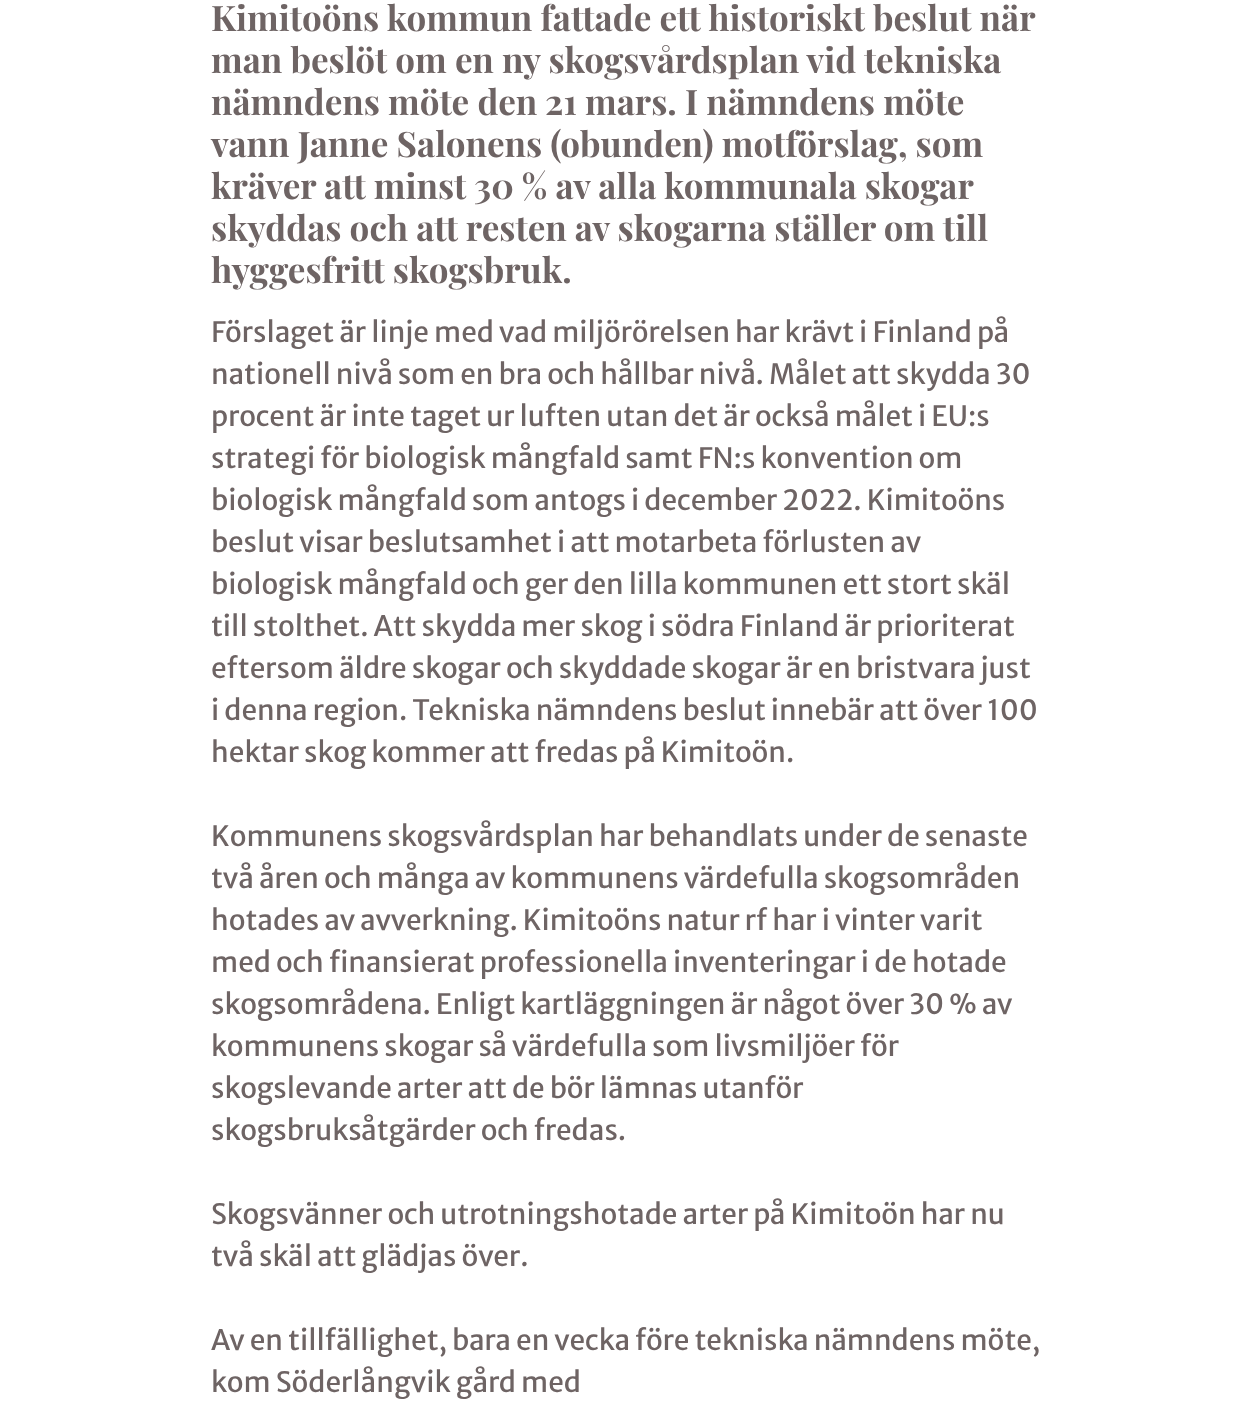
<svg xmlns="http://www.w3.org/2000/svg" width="1250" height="1405">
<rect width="100%" height="100%" fill="#fff"/>
<text x="211" y="31" style="font-family:Playfair Display;font-size:35px;font-weight:bold;fill:#6e6464">Kimitoöns kommun fattade ett historiskt beslut när</text>
<text x="211" y="73" style="font-family:Playfair Display;font-size:35px;font-weight:bold;fill:#6e6464">man beslöt om en ny skogsvårdsplan vid tekniska</text>
<text x="211" y="115" style="font-family:Playfair Display;font-size:35px;font-weight:bold;fill:#6e6464">nämndens möte den 21 mars. I nämndens möte</text>
<text x="211" y="157" style="font-family:Playfair Display;font-size:35px;font-weight:bold;fill:#6e6464">vann Janne Salonens (obunden) motförslag, som</text>
<text x="211" y="199" style="font-family:Playfair Display;font-size:35px;font-weight:bold;fill:#6e6464">kräver att minst 30 % av alla kommunala skogar</text>
<text x="211" y="241" style="font-family:Playfair Display;font-size:35px;font-weight:bold;fill:#6e6464">skyddas och att resten av skogarna ställer om till</text>
<text x="211" y="283" style="font-family:Playfair Display;font-size:35px;font-weight:bold;fill:#6e6464">hyggesfritt skogsbruk.</text>
<text x="211" y="342" style="font-family:Merriweather Sans;font-size:28px;fill:#6e6464">Förslaget är linje med vad miljörörelsen har krävt i Finland på</text>
<text x="211" y="384" style="font-family:Merriweather Sans;font-size:28px;fill:#6e6464">nationell nivå som en bra och hållbar nivå. Målet att skydda 30</text>
<text x="211" y="426" style="font-family:Merriweather Sans;font-size:28px;fill:#6e6464">procent är inte taget ur luften utan det är också målet i EU:s</text>
<text x="211" y="468" style="font-family:Merriweather Sans;font-size:28px;fill:#6e6464">strategi för biologisk mångfald samt FN:s konvention om</text>
<text x="211" y="510" style="font-family:Merriweather Sans;font-size:28px;fill:#6e6464">biologisk mångfald som antogs i december 2022. Kimitoöns</text>
<text x="211" y="552" style="font-family:Merriweather Sans;font-size:28px;fill:#6e6464">beslut visar beslutsamhet i att motarbeta förlusten av</text>
<text x="211" y="594" style="font-family:Merriweather Sans;font-size:28px;fill:#6e6464">biologisk mångfald och ger den lilla kommunen ett stort skäl</text>
<text x="211" y="636" style="font-family:Merriweather Sans;font-size:28px;fill:#6e6464">till stolthet. Att skydda mer skog i södra Finland är prioriterat</text>
<text x="211" y="678" style="font-family:Merriweather Sans;font-size:28px;fill:#6e6464">eftersom äldre skogar och skyddade skogar är en bristvara just</text>
<text x="211" y="720" style="font-family:Merriweather Sans;font-size:28px;fill:#6e6464">i denna region. Tekniska nämndens beslut innebär att över 100</text>
<text x="211" y="762" style="font-family:Merriweather Sans;font-size:28px;fill:#6e6464">hektar skog kommer att fredas på Kimitoön.</text>
<text x="211" y="846" style="font-family:Merriweather Sans;font-size:28px;fill:#6e6464">Kommunens skogsvårdsplan har behandlats under de senaste</text>
<text x="211" y="888" style="font-family:Merriweather Sans;font-size:28px;fill:#6e6464">två åren och många av kommunens värdefulla skogsområden</text>
<text x="211" y="930" style="font-family:Merriweather Sans;font-size:28px;fill:#6e6464">hotades av avverkning. Kimitoöns natur rf har i vinter varit</text>
<text x="211" y="972" style="font-family:Merriweather Sans;font-size:28px;fill:#6e6464">med och finansierat professionella inventeringar i de hotade</text>
<text x="211" y="1014" style="font-family:Merriweather Sans;font-size:28px;fill:#6e6464">skogsområdena. Enligt kartläggningen är något över 30 % av</text>
<text x="211" y="1056" style="font-family:Merriweather Sans;font-size:28px;fill:#6e6464">kommunens skogar så värdefulla som livsmiljöer för</text>
<text x="211" y="1098" style="font-family:Merriweather Sans;font-size:28px;fill:#6e6464">skogslevande arter att de bör lämnas utanför</text>
<text x="211" y="1140" style="font-family:Merriweather Sans;font-size:28px;fill:#6e6464">skogsbruksåtgärder och fredas.</text>
<text x="211" y="1224" style="font-family:Merriweather Sans;font-size:28px;fill:#6e6464">Skogsvänner och utrotningshotade arter på Kimitoön har nu</text>
<text x="211" y="1266" style="font-family:Merriweather Sans;font-size:28px;fill:#6e6464">två skäl att glädjas över.</text>
<text x="211" y="1350" style="font-family:Merriweather Sans;font-size:28px;fill:#6e6464">Av en tillfällighet, bara en vecka före tekniska nämndens möte,</text>
<text x="211" y="1392" style="font-family:Merriweather Sans;font-size:28px;fill:#6e6464">kom Söderlångvik gård med</text>
</svg>
